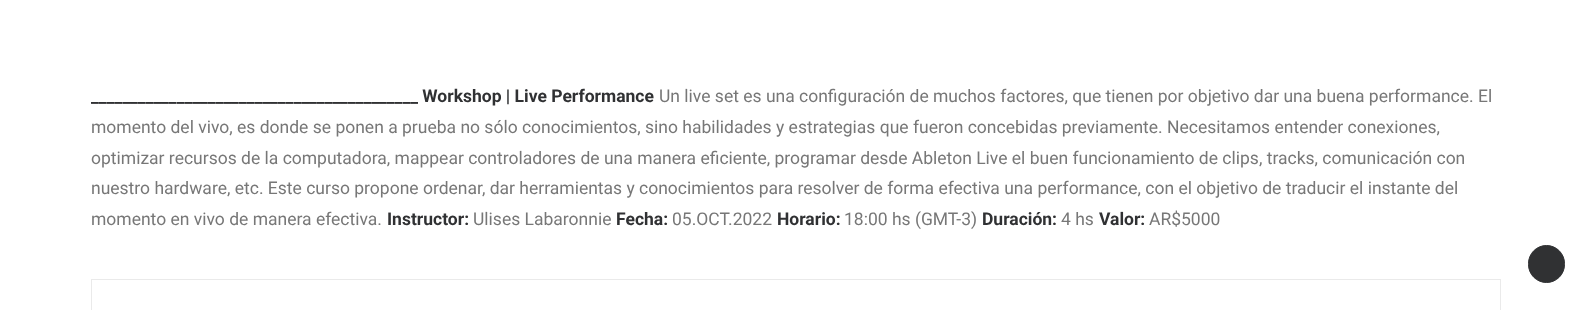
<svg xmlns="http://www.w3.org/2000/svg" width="1592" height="310">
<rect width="100%" height="100%" fill="#fff"/>
<text x="91" y="102" style="font-family:Roboto;font-size:17.5px;font-weight:bold;fill:#303133">__________________________________________ Workshop | Live Performance</text>
<text x="659" y="102" style="font-family:Roboto;font-size:17.5px;fill:#777">Un live set es una configuración de muchos factores, que tienen por objetivo dar una buena performance. El</text>
<text x="91" y="133" style="font-family:Roboto;font-size:17.5px;fill:#777">momento del vivo, es donde se ponen a prueba no sólo conocimientos, sino habilidades y estrategias que fueron concebidas previamente. Necesitamos entender conexiones,</text>
<text x="91" y="164" style="font-family:Roboto;font-size:17.5px;fill:#777">optimizar recursos de la computadora, mappear controladores de una manera eficiente, programar desde Ableton Live el buen funcionamiento de clips, tracks, comunicación con</text>
<text x="91" y="194" style="font-family:Roboto;font-size:17.5px;fill:#777">nuestro hardware, etc. Este curso propone ordenar, dar herramientas y conocimientos para resolver de forma efectiva una performance, con el objetivo de traducir el instante del</text>
<text x="91" y="225" style="font-family:Roboto;font-size:17.5px;fill:#777">momento en vivo de manera efectiva.</text>
<text x="387" y="225" style="font-family:Roboto;font-size:17.5px;font-weight:bold;fill:#303133">Instructor:</text>
<text x="473" y="225" style="font-family:Roboto;font-size:17.5px;fill:#777">Ulises Labaronnie</text>
<text x="616" y="225" style="font-family:Roboto;font-size:17.5px;font-weight:bold;fill:#303133">Fecha:</text>
<text x="672" y="225" style="font-family:Roboto;font-size:17.5px;fill:#777">05.OCT.2022</text>
<text x="777" y="225" style="font-family:Roboto;font-size:17.5px;font-weight:bold;fill:#303133">Horario:</text>
<text x="844" y="225" style="font-family:Roboto;font-size:17.5px;fill:#777">18:00 hs (GMT-3)</text>
<text x="982" y="225" style="font-family:Roboto;font-size:17.5px;font-weight:bold;fill:#303133">Duración:</text>
<text x="1061" y="225" style="font-family:Roboto;font-size:17.5px;fill:#777">4 hs</text>
<text x="1099" y="225" style="font-family:Roboto;font-size:17.5px;font-weight:bold;fill:#303133">Valor:</text>
<text x="1149" y="225" style="font-family:Roboto;font-size:17.5px;fill:#777">AR$5000</text>
<rect x="91.5" y="279.5" width="1409" height="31" fill="none" stroke="#eaeaea"/>
<rect x="1528.5" y="245.5" width="36" height="37" rx="18" fill="#303133" stroke="#303133"/>
</svg>
